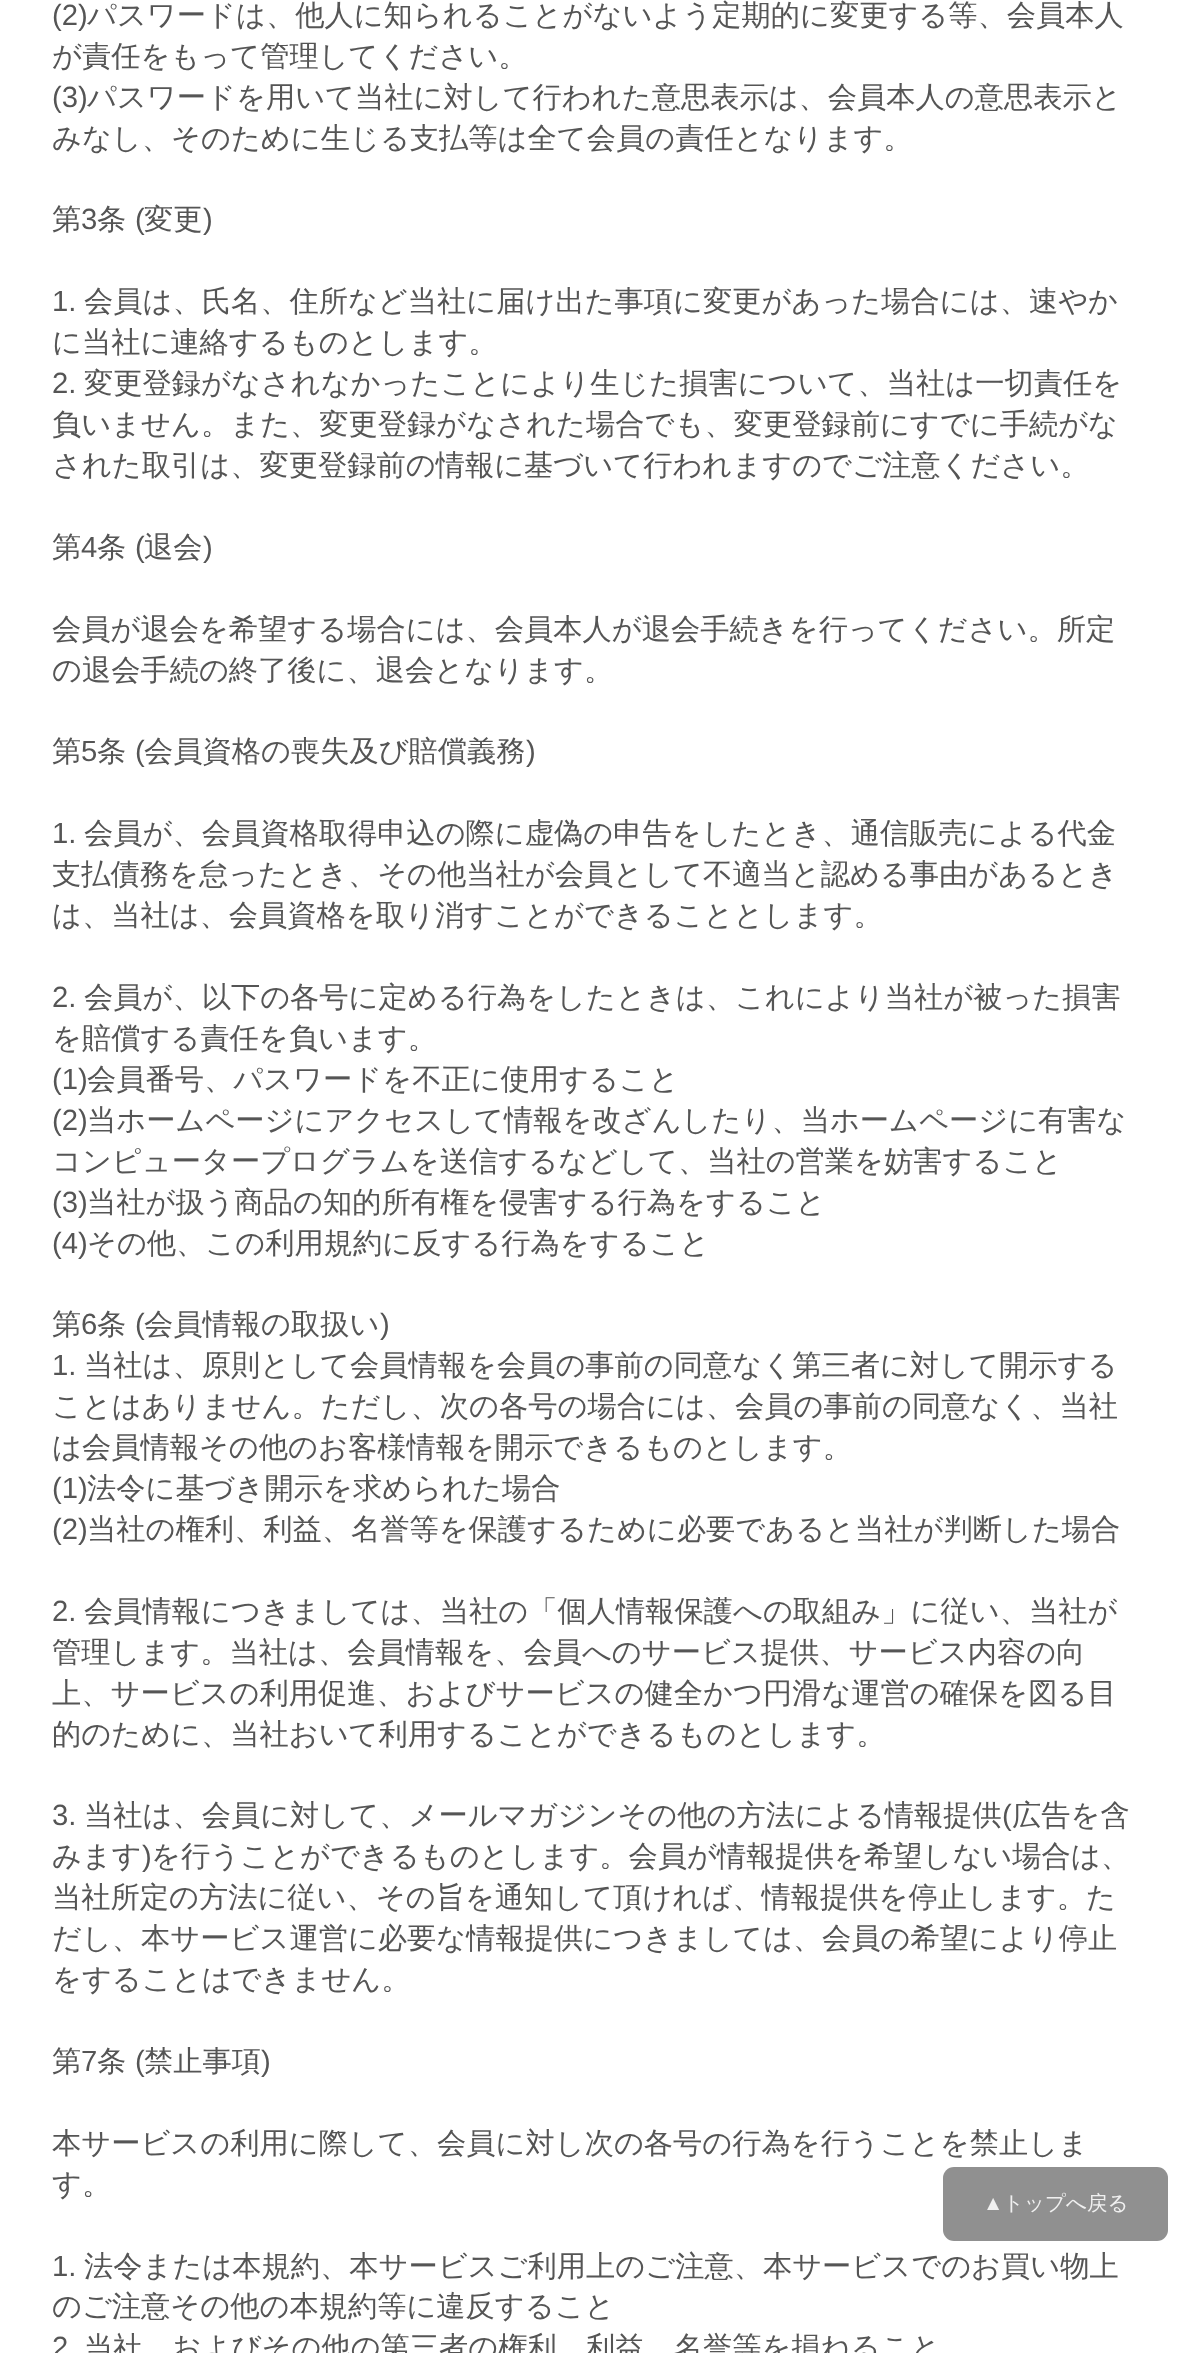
<svg xmlns="http://www.w3.org/2000/svg" width="1190" height="2353">
<rect width="100%" height="100%" fill="#fff"/>
<text x="52" y="25" style="font-family:Liberation Sans;font-size:29.25px;fill:#555">(2)</text>
<text x="87" y="25" style="font-family:WenQuanYi Zen Hei;font-size:29.25px;font-weight:500;fill:#555">パスワードは、他人に知られることがないよう定期的に変更する等、会員本人</text>
<text x="52" y="66" style="font-family:WenQuanYi Zen Hei;font-size:29.25px;font-weight:500;fill:#555">が責任をもって管理してください。</text>
<text x="52" y="107" style="font-family:Liberation Sans;font-size:29.25px;fill:#555">(3)</text>
<text x="87" y="107" style="font-family:WenQuanYi Zen Hei;font-size:29.25px;font-weight:500;fill:#555">パスワードを用いて当社に対して行われた意思表示は、会員本人の意思表示と</text>
<text x="52" y="148" style="font-family:WenQuanYi Zen Hei;font-size:29.25px;font-weight:500;fill:#555">みなし、そのために生じる支払等は全て会員の責任となります。</text>
<text x="52" y="229" style="font-family:WenQuanYi Zen Hei;font-size:29.25px;font-weight:500;fill:#555">第</text>
<text x="81" y="229" style="font-family:Liberation Sans;font-size:29.25px;fill:#555">3</text>
<text x="97" y="229" style="font-family:WenQuanYi Zen Hei;font-size:29.25px;font-weight:500;fill:#555">条</text>
<text x="135" y="229" style="font-family:Liberation Sans;font-size:29.25px;fill:#555">(</text>
<text x="144" y="229" style="font-family:WenQuanYi Zen Hei;font-size:29.25px;font-weight:500;fill:#555">変更</text>
<text x="203" y="229" style="font-family:Liberation Sans;font-size:29.25px;fill:#555">)</text>
<text x="52" y="311" style="font-family:Liberation Sans;font-size:29.25px;fill:#555">1.</text>
<text x="84" y="311" style="font-family:WenQuanYi Zen Hei;font-size:29.25px;font-weight:500;fill:#555">会員は、氏名、住所など当社に届け出た事項に変更があった場合には、速やか</text>
<text x="52" y="352" style="font-family:WenQuanYi Zen Hei;font-size:29.25px;font-weight:500;fill:#555">に当社に連絡するものとします。</text>
<text x="52" y="393" style="font-family:Liberation Sans;font-size:29.25px;fill:#555">2.</text>
<text x="84" y="393" style="font-family:WenQuanYi Zen Hei;font-size:29.25px;font-weight:500;fill:#555">変更登録がなされなかったことにより生じた損害について、当社は一切責任を</text>
<text x="52" y="434" style="font-family:WenQuanYi Zen Hei;font-size:29.25px;font-weight:500;fill:#555">負いません。また、変更登録がなされた場合でも、変更登録前にすでに手続がな</text>
<text x="52" y="475" style="font-family:WenQuanYi Zen Hei;font-size:29.25px;font-weight:500;fill:#555">された取引は、変更登録前の情報に基づいて行われますのでご注意ください。</text>
<text x="52" y="557" style="font-family:WenQuanYi Zen Hei;font-size:29.25px;font-weight:500;fill:#555">第</text>
<text x="81" y="557" style="font-family:Liberation Sans;font-size:29.25px;fill:#555">4</text>
<text x="97" y="557" style="font-family:WenQuanYi Zen Hei;font-size:29.25px;font-weight:500;fill:#555">条</text>
<text x="135" y="557" style="font-family:Liberation Sans;font-size:29.25px;fill:#555">(</text>
<text x="144" y="557" style="font-family:WenQuanYi Zen Hei;font-size:29.25px;font-weight:500;fill:#555">退会</text>
<text x="203" y="557" style="font-family:Liberation Sans;font-size:29.25px;fill:#555">)</text>
<text x="52" y="639" style="font-family:WenQuanYi Zen Hei;font-size:29.25px;font-weight:500;fill:#555">会員が退会を希望する場合には、会員本人が退会手続きを行ってください。所定</text>
<text x="52" y="680" style="font-family:WenQuanYi Zen Hei;font-size:29.25px;font-weight:500;fill:#555">の退会手続の終了後に、退会となります。</text>
<text x="52" y="761" style="font-family:WenQuanYi Zen Hei;font-size:29.25px;font-weight:500;fill:#555">第</text>
<text x="81" y="761" style="font-family:Liberation Sans;font-size:29.25px;fill:#555">5</text>
<text x="97" y="761" style="font-family:WenQuanYi Zen Hei;font-size:29.25px;font-weight:500;fill:#555">条</text>
<text x="135" y="761" style="font-family:Liberation Sans;font-size:29.25px;fill:#555">(</text>
<text x="144" y="761" style="font-family:WenQuanYi Zen Hei;font-size:29.25px;font-weight:500;fill:#555">会員資格の喪失及び賠償義務</text>
<text x="526" y="761" style="font-family:Liberation Sans;font-size:29.25px;fill:#555">)</text>
<text x="52" y="843" style="font-family:Liberation Sans;font-size:29.25px;fill:#555">1.</text>
<text x="84" y="843" style="font-family:WenQuanYi Zen Hei;font-size:29.25px;font-weight:500;fill:#555">会員が、会員資格取得申込の際に虚偽の申告をしたとき、通信販売による代金</text>
<text x="52" y="884" style="font-family:WenQuanYi Zen Hei;font-size:29.25px;font-weight:500;fill:#555">支払債務を怠ったとき、その他当社が会員として不適当と認める事由があるとき</text>
<text x="52" y="925" style="font-family:WenQuanYi Zen Hei;font-size:29.25px;font-weight:500;fill:#555">は、当社は、会員資格を取り消すことができることとします。</text>
<text x="52" y="1007" style="font-family:Liberation Sans;font-size:29.25px;fill:#555">2.</text>
<text x="84" y="1007" style="font-family:WenQuanYi Zen Hei;font-size:29.25px;font-weight:500;fill:#555">会員が、以下の各号に定める行為をしたときは、これにより当社が被った損害</text>
<text x="52" y="1048" style="font-family:WenQuanYi Zen Hei;font-size:29.25px;font-weight:500;fill:#555">を賠償する責任を負います。</text>
<text x="52" y="1089" style="font-family:Liberation Sans;font-size:29.25px;fill:#555">(1)</text>
<text x="87" y="1089" style="font-family:WenQuanYi Zen Hei;font-size:29.25px;font-weight:500;fill:#555">会員番号、パスワードを不正に使用すること</text>
<text x="52" y="1130" style="font-family:Liberation Sans;font-size:29.25px;fill:#555">(2)</text>
<text x="87" y="1130" style="font-family:WenQuanYi Zen Hei;font-size:29.25px;font-weight:500;fill:#555">当ホームページにアクセスして情報を改ざんしたり、当ホームページに有害な</text>
<text x="52" y="1171" style="font-family:WenQuanYi Zen Hei;font-size:29.25px;font-weight:500;fill:#555">コンピュータープログラムを送信するなどして、当社の営業を妨害すること</text>
<text x="52" y="1212" style="font-family:Liberation Sans;font-size:29.25px;fill:#555">(3)</text>
<text x="87" y="1212" style="font-family:WenQuanYi Zen Hei;font-size:29.25px;font-weight:500;fill:#555">当社が扱う商品の知的所有権を侵害する行為をすること</text>
<text x="52" y="1253" style="font-family:Liberation Sans;font-size:29.25px;fill:#555">(4)</text>
<text x="87" y="1253" style="font-family:WenQuanYi Zen Hei;font-size:29.25px;font-weight:500;fill:#555">その他、この利用規約に反する行為をすること</text>
<text x="52" y="1334" style="font-family:WenQuanYi Zen Hei;font-size:29.25px;font-weight:500;fill:#555">第</text>
<text x="81" y="1334" style="font-family:Liberation Sans;font-size:29.25px;fill:#555">6</text>
<text x="97" y="1334" style="font-family:WenQuanYi Zen Hei;font-size:29.25px;font-weight:500;fill:#555">条</text>
<text x="135" y="1334" style="font-family:Liberation Sans;font-size:29.25px;fill:#555">(</text>
<text x="144" y="1334" style="font-family:WenQuanYi Zen Hei;font-size:29.25px;font-weight:500;fill:#555">会員情報の取扱い</text>
<text x="380" y="1334" style="font-family:Liberation Sans;font-size:29.25px;fill:#555">)</text>
<text x="52" y="1375" style="font-family:Liberation Sans;font-size:29.25px;fill:#555">1.</text>
<text x="84" y="1375" style="font-family:WenQuanYi Zen Hei;font-size:29.25px;font-weight:500;fill:#555">当社は、原則として会員情報を会員の事前の同意なく第三者に対して開示する</text>
<text x="52" y="1416" style="font-family:WenQuanYi Zen Hei;font-size:29.25px;font-weight:500;fill:#555">ことはありません。ただし、次の各号の場合には、会員の事前の同意なく、当社</text>
<text x="52" y="1457" style="font-family:WenQuanYi Zen Hei;font-size:29.25px;font-weight:500;fill:#555">は会員情報その他のお客様情報を開示できるものとします。</text>
<text x="52" y="1498" style="font-family:Liberation Sans;font-size:29.25px;fill:#555">(1)</text>
<text x="87" y="1498" style="font-family:WenQuanYi Zen Hei;font-size:29.25px;font-weight:500;fill:#555">法令に基づき開示を求められた場合</text>
<text x="52" y="1539" style="font-family:Liberation Sans;font-size:29.25px;fill:#555">(2)</text>
<text x="87" y="1539" style="font-family:WenQuanYi Zen Hei;font-size:29.25px;font-weight:500;fill:#555">当社の権利、利益、名誉等を保護するために必要であると当社が判断した場合</text>
<text x="52" y="1621" style="font-family:Liberation Sans;font-size:29.25px;fill:#555">2.</text>
<text x="84" y="1621" style="font-family:WenQuanYi Zen Hei;font-size:29.25px;font-weight:500;fill:#555">会員情報につきましては、当社の「個人情報保護への取組み」に従い、当社が</text>
<text x="52" y="1662" style="font-family:WenQuanYi Zen Hei;font-size:29.25px;font-weight:500;fill:#555">管理します。当社は、会員情報を、会員へのサービス提供、サービス内容の向</text>
<text x="52" y="1703" style="font-family:WenQuanYi Zen Hei;font-size:29.25px;font-weight:500;fill:#555">上、サービスの利用促進、およびサービスの健全かつ円滑な運営の確保を図る目</text>
<text x="52" y="1744" style="font-family:WenQuanYi Zen Hei;font-size:29.25px;font-weight:500;fill:#555">的のために、当社おいて利用することができるものとします。</text>
<text x="52" y="1825" style="font-family:Liberation Sans;font-size:29.25px;fill:#555">3.</text>
<text x="84" y="1825" style="font-family:WenQuanYi Zen Hei;font-size:29.25px;font-weight:500;fill:#555">当社は、会員に対して、メールマガジンその他の方法による情報提供</text>
<text x="1002" y="1825" style="font-family:Liberation Sans;font-size:29.25px;fill:#555">(</text>
<text x="1012" y="1825" style="font-family:WenQuanYi Zen Hei;font-size:29.25px;font-weight:500;fill:#555">広告を含</text>
<text x="52" y="1866" style="font-family:WenQuanYi Zen Hei;font-size:29.25px;font-weight:500;fill:#555">みます</text>
<text x="142" y="1866" style="font-family:Liberation Sans;font-size:29.25px;fill:#555">)</text>
<text x="151" y="1866" style="font-family:WenQuanYi Zen Hei;font-size:29.25px;font-weight:500;fill:#555">を行うことができるものとします。会員が情報提供を希望しない場合は、</text>
<text x="52" y="1907" style="font-family:WenQuanYi Zen Hei;font-size:29.25px;font-weight:500;fill:#555">当社所定の方法に従い、その旨を通知して頂ければ、情報提供を停止します。た</text>
<text x="52" y="1948" style="font-family:WenQuanYi Zen Hei;font-size:29.25px;font-weight:500;fill:#555">だし、本サービス運営に必要な情報提供につきましては、会員の希望により停止</text>
<text x="52" y="1989" style="font-family:WenQuanYi Zen Hei;font-size:29.25px;font-weight:500;fill:#555">をすることはできません。</text>
<text x="52" y="2071" style="font-family:WenQuanYi Zen Hei;font-size:29.25px;font-weight:500;fill:#555">第</text>
<text x="81" y="2071" style="font-family:Liberation Sans;font-size:29.25px;fill:#555">7</text>
<text x="97" y="2071" style="font-family:WenQuanYi Zen Hei;font-size:29.25px;font-weight:500;fill:#555">条</text>
<text x="135" y="2071" style="font-family:Liberation Sans;font-size:29.25px;fill:#555">(</text>
<text x="144" y="2071" style="font-family:WenQuanYi Zen Hei;font-size:29.25px;font-weight:500;fill:#555">禁止事項</text>
<text x="261" y="2071" style="font-family:Liberation Sans;font-size:29.25px;fill:#555">)</text>
<text x="52" y="2153" style="font-family:WenQuanYi Zen Hei;font-size:29.25px;font-weight:500;fill:#555">本サービスの利用に際して、会員に対し次の各号の行為を行うことを禁止しま</text>
<text x="52" y="2194" style="font-family:WenQuanYi Zen Hei;font-size:29.25px;font-weight:500;fill:#555">す。</text>
<text x="52" y="2276" style="font-family:Liberation Sans;font-size:29.25px;fill:#555">1.</text>
<text x="84" y="2276" style="font-family:WenQuanYi Zen Hei;font-size:29.25px;font-weight:500;fill:#555">法令または本規約、本サービスご利用上のご注意、本サービスでのお買い物上</text>
<text x="52" y="2316" style="font-family:WenQuanYi Zen Hei;font-size:29.25px;font-weight:500;fill:#555">のご注意その他の本規約等に違反すること</text>
<text x="52" y="2357" style="font-family:Liberation Sans;font-size:29.25px;fill:#555">2</text>
<text x="84" y="2357" style="font-family:WenQuanYi Zen Hei;font-size:29.25px;font-weight:500;fill:#555">当社、およびその他の第三者の権利、利益、名誉等を損ねること</text>
<rect x="943" y="2167" width="225" height="74" rx="11" fill="#909090"/>
<text x="983" y="2210" style="font-family:Liberation Sans;font-size:20.5px;fill:#f0f0f0">▲</text>
<text x="1003" y="2210" style="font-family:WenQuanYi Zen Hei;font-size:20.5px;font-weight:500;fill:#f0f0f0">トップへ戻る</text>
</svg>
